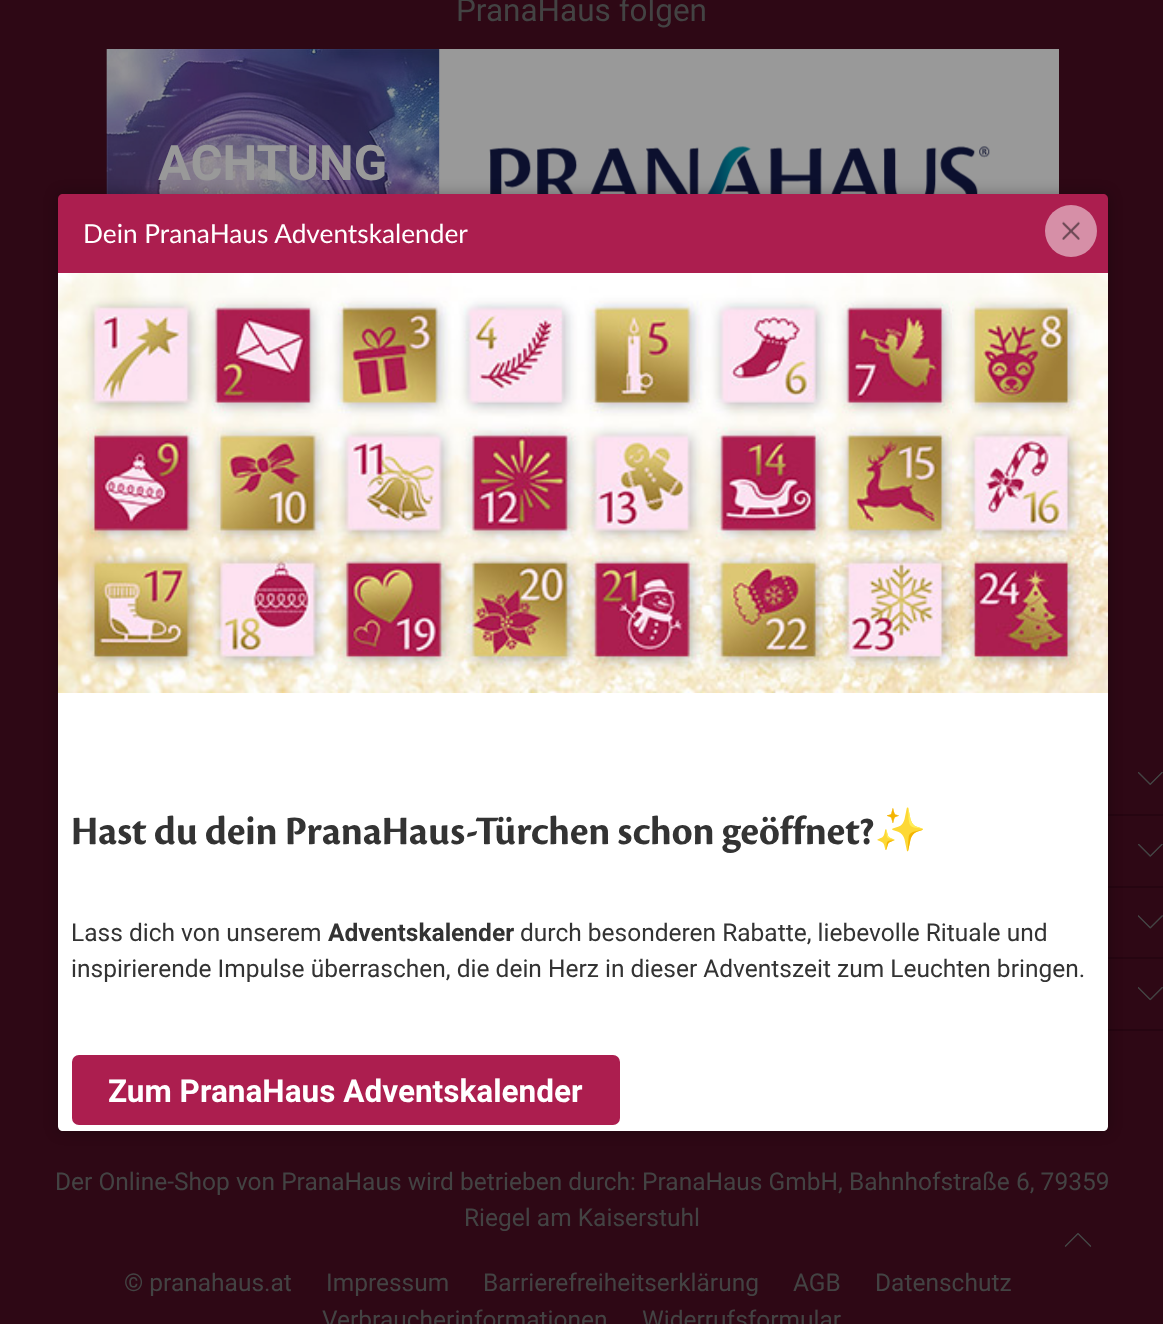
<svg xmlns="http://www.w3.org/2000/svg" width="1163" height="1324">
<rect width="100%" height="100%" fill="#2e0815"/>
<text x="456" y="21" style="font-family:Roboto;font-size:31.5px;fill:#434343">PranaHaus folgen</text>
<rect x="1108" y="814" width="55" height="2" fill="#260511"/>
<image x="1138" y="772" width="25" height="13" href="media/1.png"/>
<rect x="1108" y="886" width="55" height="2" fill="#260511"/>
<image x="1138" y="844" width="25" height="13" href="media/2.png"/>
<rect x="1108" y="957" width="55" height="2" fill="#260511"/>
<image x="1138" y="915" width="25" height="14" href="media/3.png"/>
<rect x="1108" y="1029" width="55" height="2" fill="#260511"/>
<image x="1138" y="987" width="25" height="14" href="media/4.png"/>
<text x="55" y="1190" style="font-family:Roboto;font-size:24.5px;fill:#434343">Der Online-Shop von PranaHaus wird betrieben durch: PranaHaus GmbH, Bahnhofstraße 6, 79359</text>
<text x="464" y="1226" style="font-family:Roboto;font-size:24.5px;fill:#434343">Riegel am Kaiserstuhl</text>
<text x="124" y="1291" style="font-family:Roboto;font-size:24.5px;fill:#434343">© pranahaus.at</text>
<text x="326" y="1291" style="font-family:Roboto;font-size:24.5px;fill:#434343">Impressum</text>
<text x="483" y="1291" style="font-family:Roboto;font-size:24.5px;fill:#434343">Barrierefreiheitserklärung</text>
<text x="793" y="1291" style="font-family:Roboto;font-size:24.5px;fill:#434343">AGB</text>
<text x="875" y="1291" style="font-family:Roboto;font-size:24.5px;fill:#434343">Datenschutz</text>
<text x="322" y="1328" style="font-family:Roboto;font-size:24.5px;fill:#434343">Verbraucherinformationen</text>
<text x="642" y="1328" style="font-family:Roboto;font-size:24.5px;fill:#434343">Widerrufsformular</text>
<rect x="107" y="49" width="952" height="145" fill="#999"/>
<image x="106" y="49" width="334" height="145" href="media/5.png"/>
<text x="158" y="180" style="font-family:Roboto;font-size:49px;font-weight:bold;fill:#999">ACHTUNG</text>
<image x="489" y="146" width="501" height="48" href="media/6.png"/>
<rect x="58" y="194" width="1050" height="937" rx="5" fill="#0000004d" filter="blur(7px)"/>
<path d="M63 194h1040c3 0 5 2 5 5v74h-1050v-74c0-3 2-5 5-5z" fill="#ac1e4f"/>
<text x="83" y="243" style="font-family:Lato;font-size:26.25px;fill:#fff">Dein PranaHaus Adventskalender</text>
<circle cx="1071" cy="231" r="26" fill="#d68fa7"/>
<image x="1062" y="221" width="18" height="19" href="media/7.png"/>
<path d="M58 273h1050v853c0 3-2 5-5 5h-1040c-3 0-5-2-5-5z" fill="#fff"/>
<image x="58" y="273" width="1050" height="420" href="media/8.png"/>
<text x="71" y="844" style="font-family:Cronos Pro;font-size:42px;font-weight:bold;fill:#333">Hast du dein PranaHaus-Türchen schon geöffnet?</text>
<text x="874" y="844" style="font-family:Noto Color Emoji;font-size:42px;font-weight:bold;fill:#333">✨</text>
<text x="71" y="941" style="font-family:Roboto;font-size:24.5px;fill:#333">Lass dich von unserem</text>
<text x="328" y="941" style="font-family:Roboto;font-size:24.5px;font-weight:bold;fill:#333">Adventskalender</text>
<text x="520" y="941" style="font-family:Roboto;font-size:24.5px;fill:#333">durch besonderen Rabatte, liebevolle Rituale und</text>
<text x="71" y="977" style="font-family:Roboto;font-size:24.5px;fill:#333">inspirierende Impulse überraschen, die dein Herz in dieser Adventszeit zum Leuchten bringen.</text>
<rect x="73" y="1056" width="546" height="68" rx="6" fill="#ac1e4f" stroke="#ac1e4f" stroke-width="2"/>
<text x="108" y="1102" style="font-family:Roboto;font-size:31.5px;font-weight:bold;fill:#fff">Zum PranaHaus Adventskalender</text>
<image x="1064" y="1233" width="28" height="14" href="media/9.png"/>
</svg>
